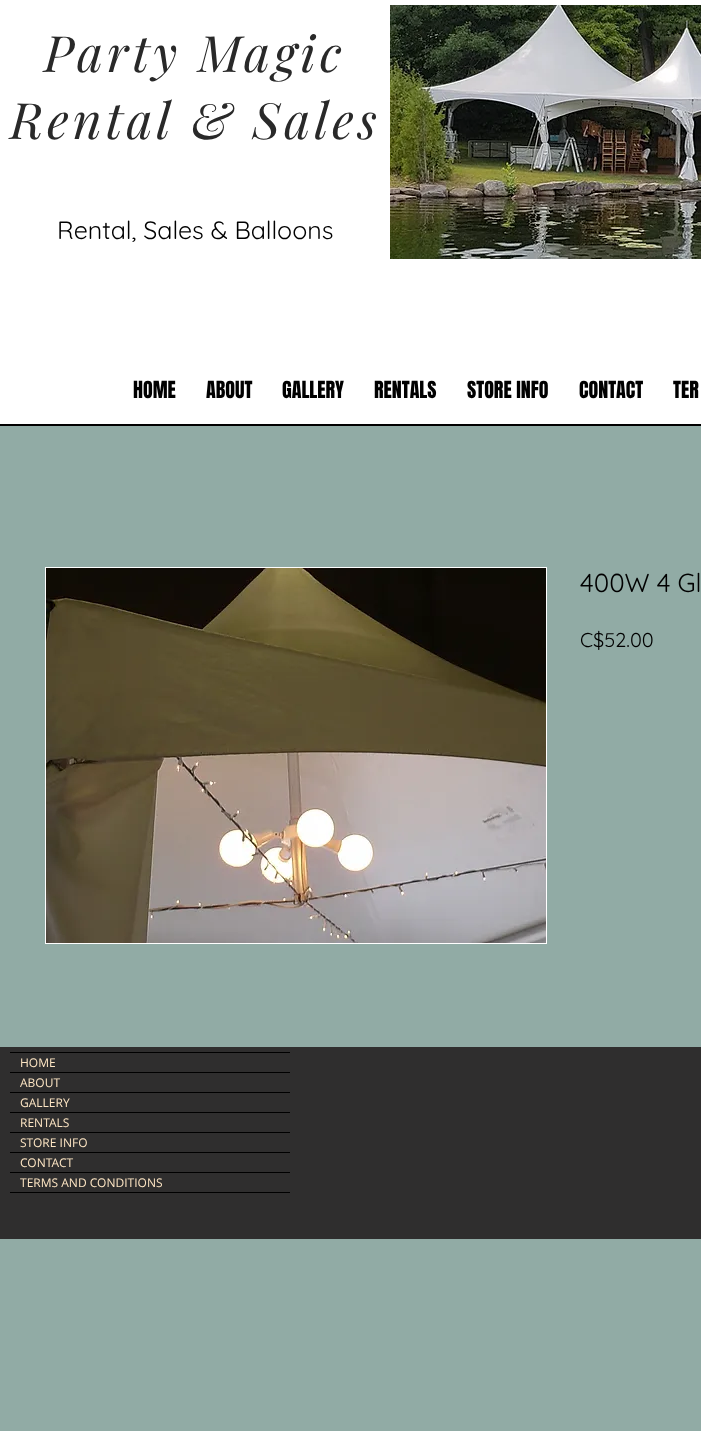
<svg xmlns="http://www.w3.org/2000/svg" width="701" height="1431">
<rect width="100%" height="100%" fill="#91aba5"/>
<rect y="424" width="701" height="2" fill="#000"/>
<rect width="701" height="424" fill="#fff"/>
<text x="44" y="72" style="font-family:Playfair Display;font-size:50px;font-style:italic;letter-spacing:4px;fill:#292929">Party Magic</text>
<text x="10" y="139" style="font-family:Playfair Display;font-size:50px;font-style:italic;letter-spacing:4px;fill:#292929">Rental &amp; Sales</text>
<text x="57" y="239" style="font-family:Quicksand;font-size:25px;fill:#000">Rental, Sales &amp; Balloons</text>
<image x="390" y="5" width="311" height="254" href="media/1.png"/>
<text x="133" y="398" style="font-family:Anton;font-size:20px;fill:#000">HOME</text>
<text x="206" y="398" style="font-family:Anton;font-size:20px;fill:#000">ABOUT</text>
<text x="282" y="398" style="font-family:Anton;font-size:20px;fill:#000">GALLERY</text>
<text x="374" y="398" style="font-family:Anton;font-size:20px;fill:#000">RENTALS</text>
<text x="467" y="398" style="font-family:Anton;font-size:20px;fill:#000">STORE INFO</text>
<text x="579" y="398" style="font-family:Anton;font-size:20px;fill:#000">CONTACT</text>
<text x="673" y="398" style="font-family:Anton;font-size:20px;fill:#000">TER</text>
<rect x="45.5" y="567.5" width="501" height="376" fill="none" stroke="#fff"/>
<image x="46" y="568" width="500" height="375" href="media/2.png"/>
<text x="580" y="592" style="font-family:Quicksand;font-size:26px;fill:#000">400W 4 Gl</text>
<text x="580" y="647" style="font-family:Quicksand;font-size:20px;fill:#000">C$52.00</text>
<rect y="1047" width="701" height="192" fill="#2f2e2e"/>
<rect x="10" y="1052" width="280" height="1" fill="#000"/>
<rect x="10" y="1192" width="280" height="1" fill="#000"/>
<rect x="10" y="1072" width="280" height="1" fill="#000"/>
<text x="20" y="1067" style="font-family:Open Sans;font-size:12px;fill:#fee6c4">HOME</text>
<rect x="10" y="1092" width="280" height="1" fill="#000"/>
<text x="20" y="1087" style="font-family:Open Sans;font-size:12px;fill:#fee6c4">ABOUT</text>
<rect x="10" y="1112" width="280" height="1" fill="#000"/>
<text x="20" y="1107" style="font-family:Open Sans;font-size:12px;fill:#fee6c4">GALLERY</text>
<rect x="10" y="1132" width="280" height="1" fill="#000"/>
<text x="20" y="1127" style="font-family:Open Sans;font-size:12px;fill:#fee6c4">RENTALS</text>
<rect x="10" y="1152" width="280" height="1" fill="#000"/>
<text x="20" y="1147" style="font-family:Open Sans;font-size:12px;fill:#fee6c4">STORE INFO</text>
<rect x="10" y="1172" width="280" height="1" fill="#000"/>
<text x="20" y="1167" style="font-family:Open Sans;font-size:12px;fill:#fee6c4">CONTACT</text>
<text x="20" y="1187" style="font-family:Open Sans;font-size:12px;fill:#fee6c4">TERMS AND CONDITIONS</text>
</svg>
